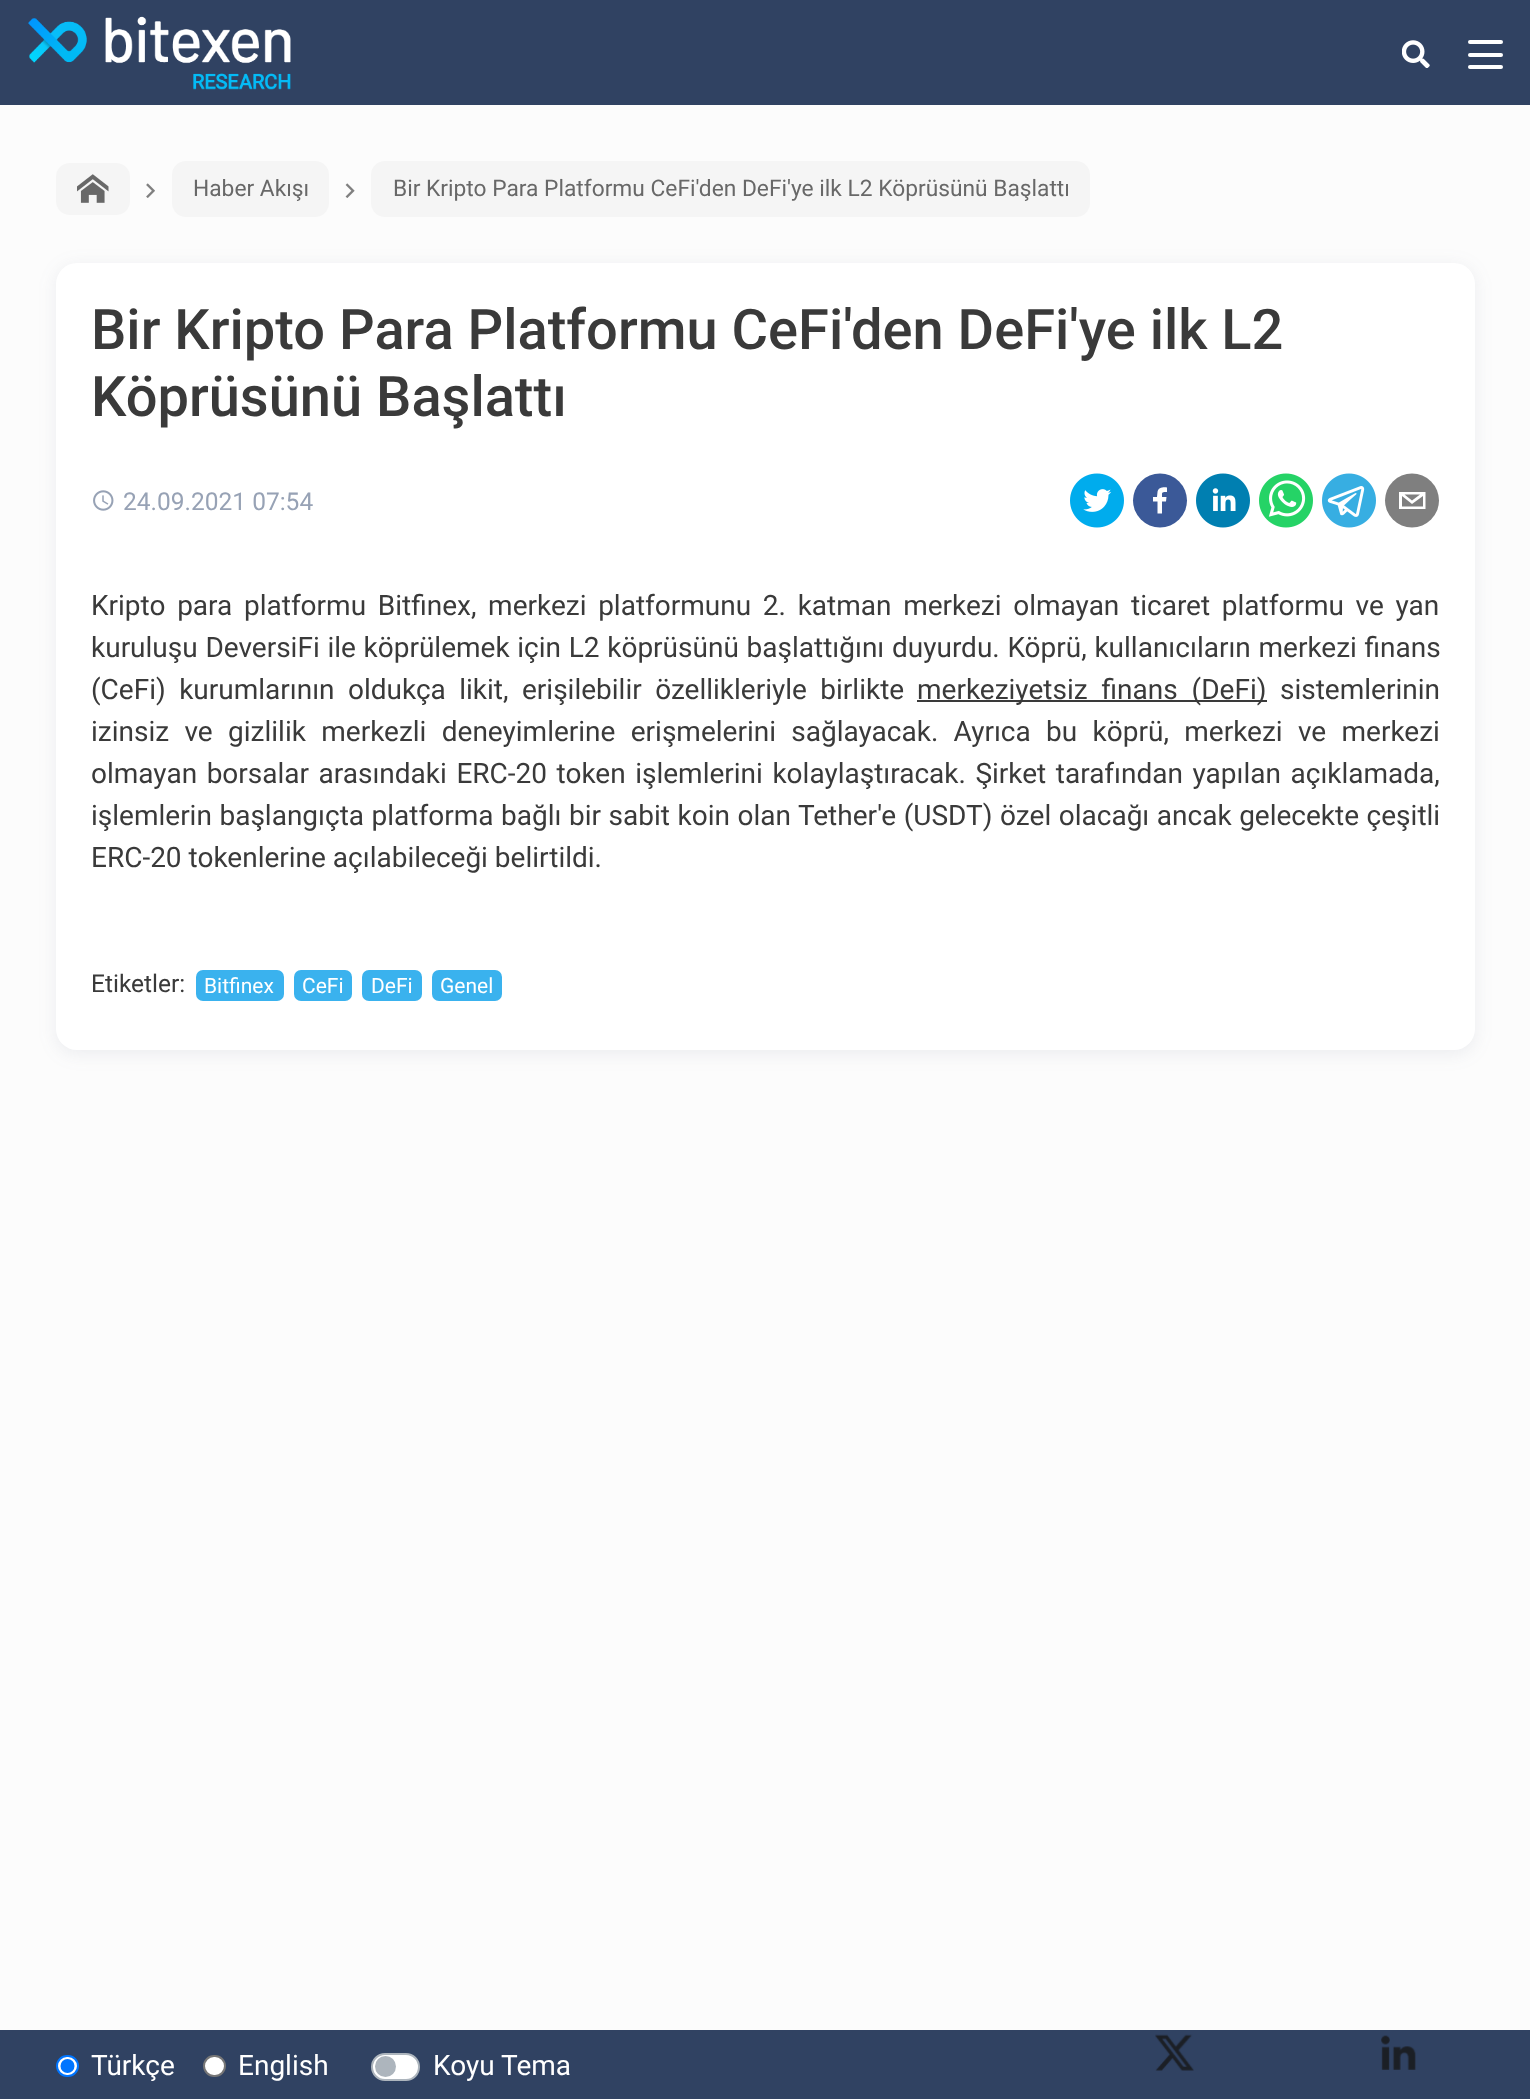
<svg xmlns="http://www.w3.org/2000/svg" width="1530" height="2099">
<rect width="100%" height="100%" fill="#fcfcfc"/>
<rect width="1530" height="105" fill="#304262"/>
<image x="28" y="16" width="263" height="74" href="media/1.png"/>
<image x="1402" y="40" width="28" height="28" href="media/2.png"/>
<rect x="1468" y="40" width="35" height="4" rx="2" fill="#fff"/>
<rect x="1468" y="53" width="35" height="4" rx="2" fill="#fff"/>
<rect x="1468" y="65" width="35" height="4" rx="2" fill="#fff"/>
<rect x="56" y="163" width="74" height="52" rx="14" fill="#f5f5f5"/>
<image x="77" y="174" width="32" height="29" href="media/3.png"/>
<image x="146" y="183" width="9" height="15" href="media/4.png"/>
<rect x="172" y="161" width="157" height="56" rx="14" fill="#f5f5f5"/>
<text x="193" y="196" style="font-family:Roboto;font-size:22.75px;fill:#686868">Haber Akışı</text>
<image x="345" y="183" width="10" height="15" href="media/5.png"/>
<rect x="371" y="161" width="719" height="56" rx="14" fill="#f5f5f5"/>
<text x="393" y="196" style="font-family:Roboto;font-size:22.75px;fill:#686868">Bir Kripto Para Platformu CeFi'den DeFi'ye ilk L2 Köprüsünü Başlattı</text>
<rect x="56" y="266" width="1419" height="788" rx="21" fill="#5a667c1a" filter="blur(9px)"/>
<rect x="56" y="263" width="1419" height="787" rx="21" fill="#fff"/>
<text x="91" y="349" style="font-family:Roboto;font-size:56px;font-weight:500;fill:#3a3a3a">Bir Kripto Para Platformu CeFi'den DeFi'ye ilk L2</text>
<text x="91" y="416" style="font-family:Roboto;font-size:56px;font-weight:500;fill:#3a3a3a">Köprüsünü Başlattı</text>
<image x="93" y="490" width="21" height="21" href="media/6.png"/>
<text x="123" y="510" style="font-family:Roboto;font-size:24.5px;fill:#97a2b5">24.09.2021 07:54</text>
<image x="1070" y="473" width="54" height="55" href="media/7.png"/>
<circle cx="1160" cy="500.5" r="27" fill="#3b5998"/>
<path d="M1162 513.5v-12h4l.5-4.5h-4.5c0-5-.5-5 5-5v-4.5c-4-.5-9 0-9.5 4.5l-.5 5h-4v4.5h4.5v12z" fill="#fff"/>
<image x="1196" y="473" width="54" height="55" href="media/8.png"/>
<image x="1259" y="473" width="54" height="55" href="media/9.png"/>
<image x="1322" y="473" width="54" height="55" href="media/10.png"/>
<circle cx="1412" cy="500.5" r="27" fill="#7f7f7f"/>
<path d="M1399 492v17h26.5v-17zm21 2.5l-8 6l-7.5-6zm-18 12v-10.5l10 8l11-8v10.5z" fill="#fff"/>
<text x="91" y="615" word-spacing="4.75" style="font-family:Roboto;font-size:28px;fill:#3a3a3a">Kripto para platformu Bitfinex, merkezi platformunu 2. katman merkezi olmayan ticaret platformu ve yan</text>
<text x="91" y="657" word-spacing="0.75" style="font-family:Roboto;font-size:28px;fill:#3a3a3a">kuruluşu DeversiFi ile köprülemek için L2 köprüsünü başlattığını duyurdu. Köprü, kullanıcıların merkezi finans</text>
<text x="91" y="699" word-spacing="6.5" style="font-family:Roboto;font-size:28px;fill:#3a3a3a">(CeFi) kurumlarının oldukça likit, erişilebilir özellikleriyle birlikte</text>
<rect x="917" y="700" width="350" height="2" fill="#3a3a3a"/>
<text x="917" y="699" word-spacing="7" style="font-family:Roboto;font-size:28px;fill:#3a3a3a">merkeziyetsiz finans (DeFi)</text>
<text x="1280" y="699" style="font-family:Roboto;font-size:28px;fill:#3a3a3a">sistemlerinin</text>
<text x="91" y="741" word-spacing="8.4" style="font-family:Roboto;font-size:28px;fill:#3a3a3a">izinsiz ve gizlilik merkezli deneyimlerine erişmelerini sağlayacak. Ayrıca bu köprü, merkezi ve merkezi</text>
<text x="91" y="783" word-spacing="2.6" style="font-family:Roboto;font-size:28px;fill:#3a3a3a">olmayan borsalar arasındaki ERC-20 token işlemlerini kolaylaştıracak. Şirket tarafından yapılan açıklamada,</text>
<text x="91" y="825" word-spacing="0.6" style="font-family:Roboto;font-size:28px;fill:#3a3a3a">işlemlerin başlangıçta platforma bağlı bir sabit koin olan Tether'e (USDT) özel olacağı ancak gelecekte çeşitli</text>
<text x="91" y="867" style="font-family:Roboto;font-size:28px;fill:#3a3a3a">ERC-20 tokenlerine açılabileceği belirtildi.</text>
<text x="91" y="992" style="font-family:Roboto;font-size:24.5px;fill:#3a3a3a">Etiketler:</text>
<rect x="196" y="970" width="88" height="31" rx="7" fill="#3ab2ee"/>
<text x="204" y="993" style="font-family:Roboto;font-size:21px;fill:#fff">Bitfinex</text>
<rect x="294" y="970" width="58" height="31" rx="7" fill="#3ab2ee"/>
<text x="302" y="993" style="font-family:Roboto;font-size:21px;fill:#fff">CeFi</text>
<rect x="362" y="970" width="60" height="31" rx="7" fill="#3ab2ee"/>
<text x="371" y="993" style="font-family:Roboto;font-size:21px;fill:#fff">DeFi</text>
<rect x="432" y="970" width="70" height="31" rx="7" fill="#3ab2ee"/>
<text x="440" y="993" style="font-family:Roboto;font-size:21px;fill:#fff">Genel</text>
<rect y="2030" width="1530" height="69" fill="#304262"/>
<rect x="57" y="2056" width="21" height="20" rx="10" fill="#fff" stroke="#0075ff" stroke-width="2"/>
<circle cx="67.5" cy="2066" r="7" fill="#0075ff"/>
<text x="91" y="2075" style="font-family:Roboto;font-size:28px;fill:#fff">Türkçe</text>
<rect x="204" y="2056" width="21" height="20" rx="10" fill="#fff" stroke="#767676" stroke-width="2"/>
<text x="238" y="2075" style="font-family:Roboto;font-size:28px;fill:#fff">English</text>
<rect x="372" y="2054" width="47" height="26" rx="13" fill="#fff" stroke="#adb5bd" stroke-width="2"/>
<text x="433" y="2075" style="font-family:Roboto;font-size:28px;fill:#fff">Koyu Tema</text>
<circle cx="385.5" cy="2066.5" r="10.5" fill="#adb5bd"/>
<image x="1155" y="2034" width="39" height="37" href="media/11.png"/>
<image x="1381" y="2035" width="35" height="35" href="media/12.png"/>
</svg>
